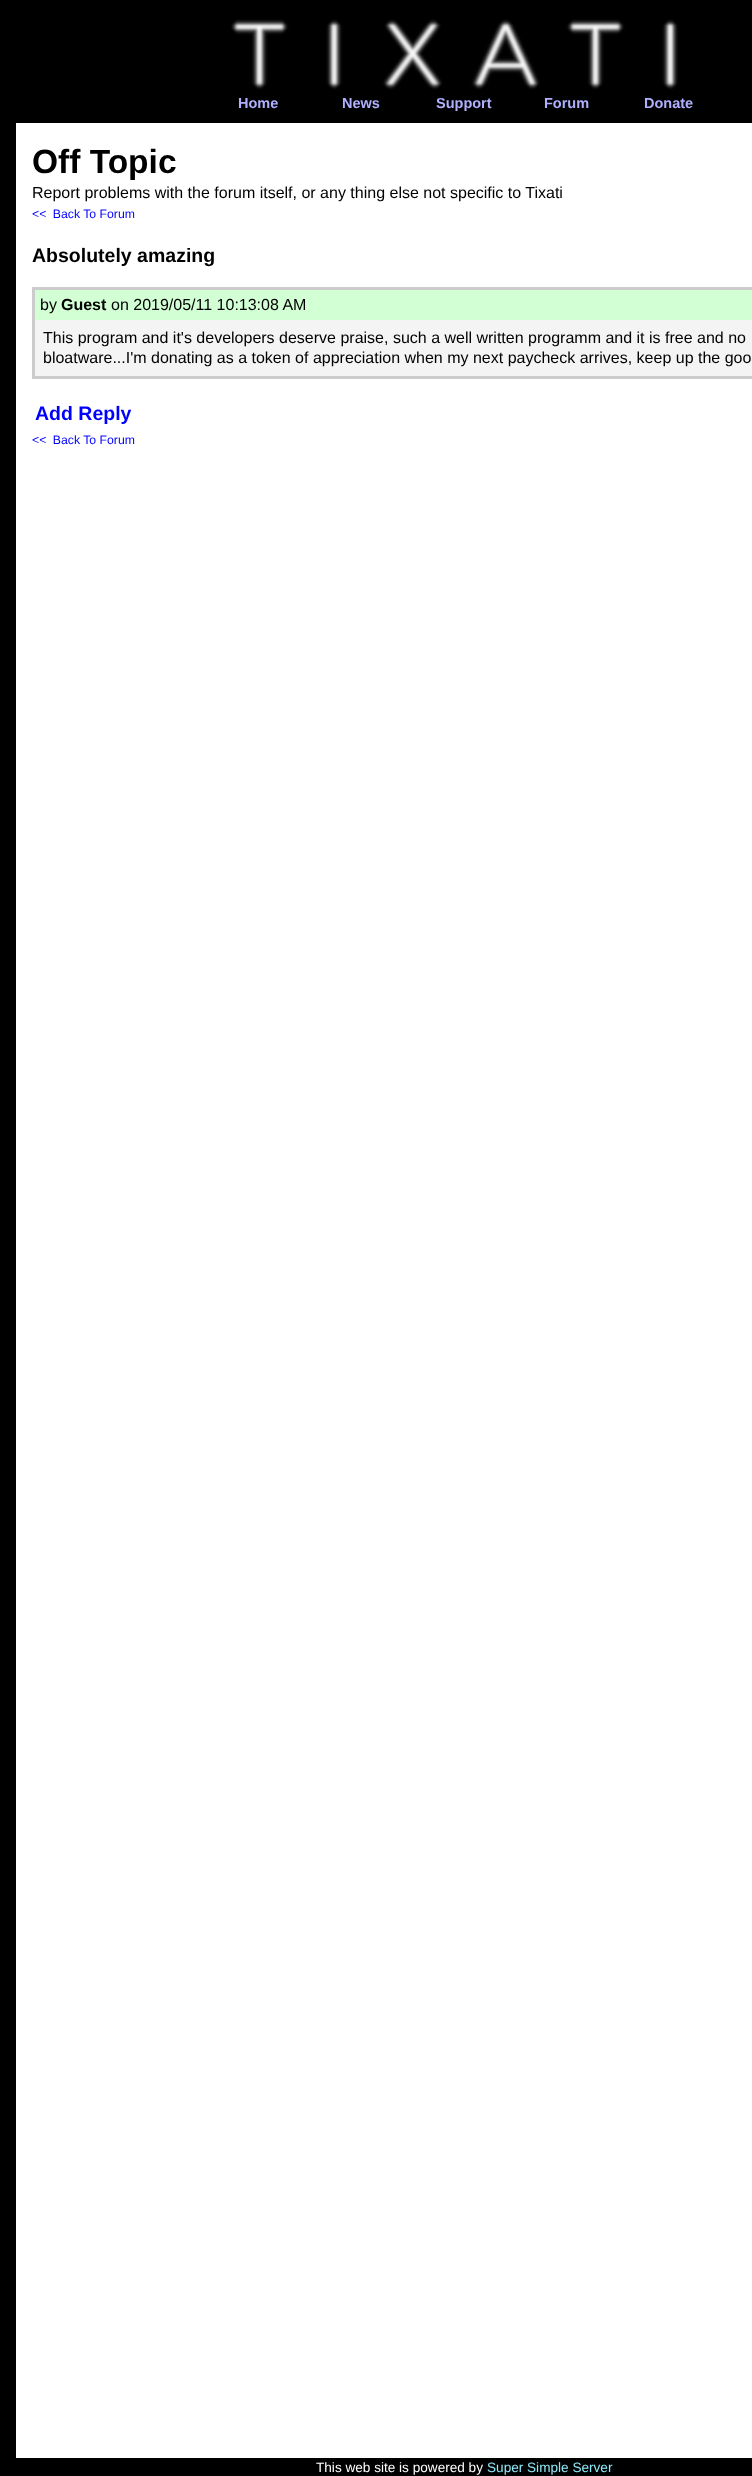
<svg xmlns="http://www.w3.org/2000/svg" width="752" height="2476">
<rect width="100%" height="100%" fill="#fff"/>
<rect width="752" height="123" fill="#000"/>
<image x="231" y="19" width="447" height="71" href="media/1.png"/>
<text x="238" y="108" style="font-family:Liberation Sans;font-size:14.5px;font-weight:bold;fill:#b0b0ff">Home</text>
<text x="342" y="108" style="font-family:Liberation Sans;font-size:14.5px;font-weight:bold;fill:#b0b0ff">News</text>
<text x="436" y="108" style="font-family:Liberation Sans;font-size:14.5px;font-weight:bold;fill:#b0b0ff">Support</text>
<text x="544" y="108" style="font-family:Liberation Sans;font-size:14.5px;font-weight:bold;fill:#b0b0ff">Forum</text>
<text x="644" y="108" style="font-family:Liberation Sans;font-size:14.5px;font-weight:bold;fill:#b0b0ff">Donate</text>
<rect y="123" width="16" height="2335" fill="#000"/>
<text x="32" y="173" style="font-family:Liberation Sans;font-size:33.5px;font-weight:bold;fill:#000">Off Topic</text>
<text x="32" y="198" style="font-family:Liberation Sans;font-size:16px;fill:#000">Report problems with the forum itself, or any thing else not specific to Tixati</text>
<text x="32" y="218" style="font-family:Liberation Sans;font-size:12.25px;fill:#00f">&lt;&lt;  Back To Forum</text>
<text x="32" y="262" style="font-family:Liberation Sans;font-size:19.5px;font-weight:bold;fill:#000">Absolutely amazing</text>
<rect x="35" y="320" width="717" height="56" fill="#f4f4f4"/>
<rect x="33.5" y="288.5" width="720" height="89" fill="none" stroke="#ccc" stroke-width="3"/>
<rect x="35" y="290" width="717" height="30" fill="#d2ffd4"/>
<text x="40" y="310" style="font-family:Liberation Sans;font-size:16px;fill:#000">by</text>
<text x="61" y="310" style="font-family:Liberation Sans;font-size:16px;font-weight:bold;fill:#000">Guest</text>
<text x="111" y="310" style="font-family:Liberation Sans;font-size:16px;fill:#000">on 2019/05/11 10:13:08 AM</text>
<text x="43" y="343" style="font-family:Liberation Sans;font-size:16px;fill:#000">This program and it's developers deserve praise, such a well written programm and it is free and no</text>
<text x="43" y="363" style="font-family:Liberation Sans;font-size:16px;fill:#000">bloatware...I'm donating as a token of appreciation when my next paycheck arrives, keep up the goo</text>
<text x="35" y="420" style="font-family:Liberation Sans;font-size:19.5px;font-weight:bold;fill:#00f">Add Reply</text>
<text x="32" y="444" style="font-family:Liberation Sans;font-size:12.25px;fill:#00f">&lt;&lt;  Back To Forum</text>
<rect y="2458" width="752" height="18" fill="#000"/>
<text x="316" y="2472" style="font-family:Liberation Sans;font-size:13.6px;fill:#fff">This web site is powered by</text>
<text x="487" y="2472" style="font-family:Liberation Sans;font-size:13.6px;fill:#8de8f8">Super Simple Server</text>
</svg>
